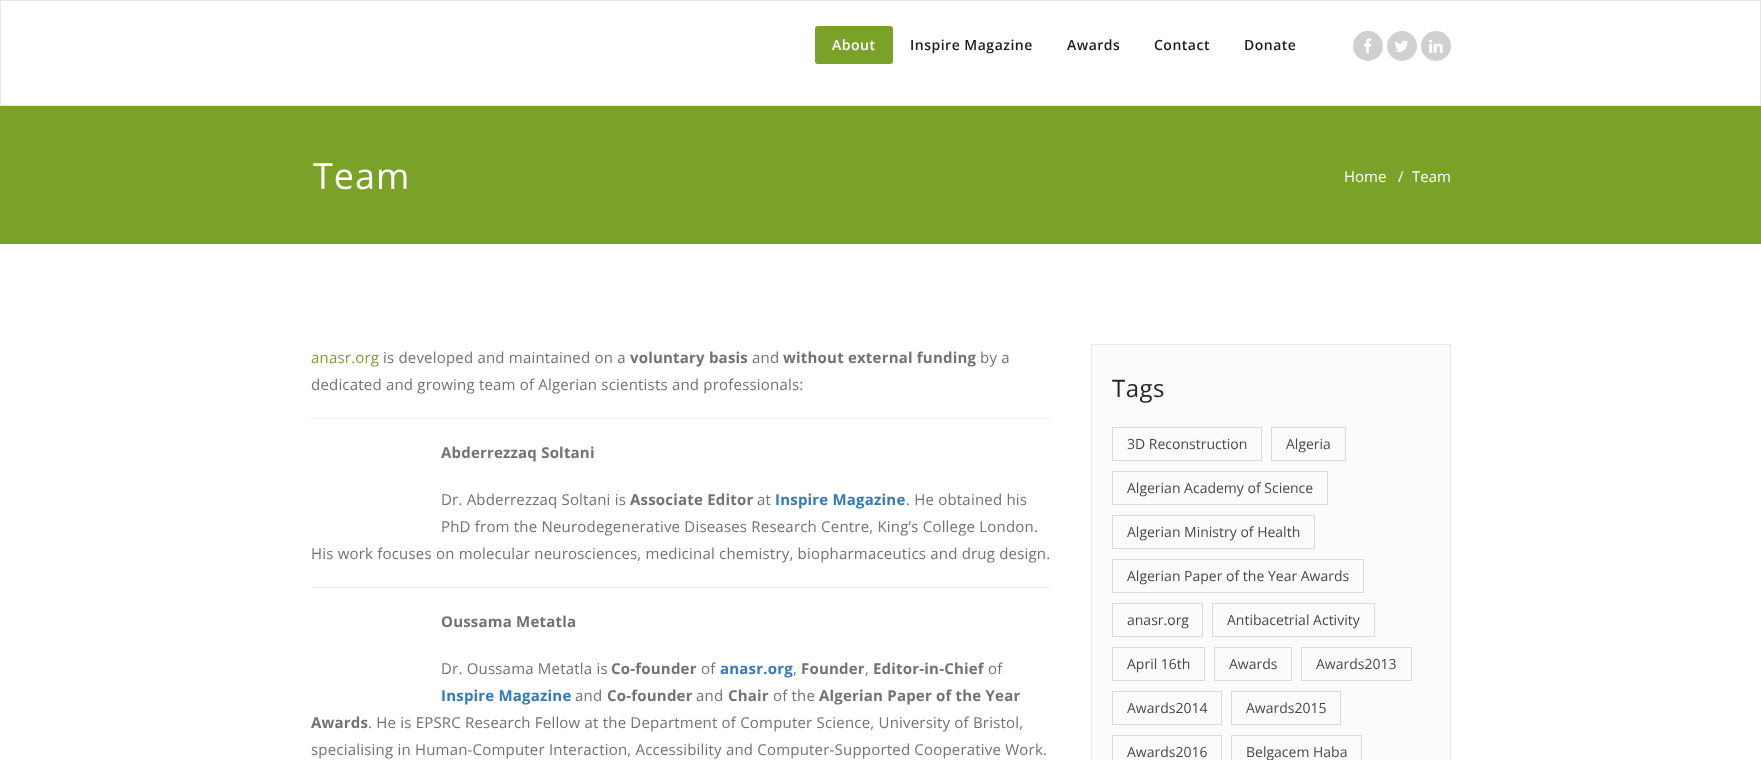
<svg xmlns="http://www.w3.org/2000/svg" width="1761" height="760">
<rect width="100%" height="100%" fill="#fff"/>
<rect x="0.5" y="0.5" width="1760" height="105" fill="none" stroke="#e7e7e7"/>
<rect x="815" y="26" width="78" height="38" rx="3" fill="#7aa228"/>
<text x="832" y="50" style="font-family:Open Sans;font-size:14px;font-weight:600;letter-spacing:0.5px;fill:#fff">About</text>
<text x="910" y="50" style="font-family:Open Sans;font-size:14px;font-weight:600;letter-spacing:0.5px;fill:#1b1b1b">Inspire Magazine</text>
<text x="1067" y="50" style="font-family:Open Sans;font-size:14px;font-weight:600;letter-spacing:0.5px;fill:#1b1b1b">Awards</text>
<text x="1154" y="50" style="font-family:Open Sans;font-size:14px;font-weight:600;letter-spacing:0.5px;fill:#1b1b1b">Contact</text>
<text x="1244" y="50" style="font-family:Open Sans;font-size:14px;font-weight:600;letter-spacing:0.5px;fill:#1b1b1b">Donate</text>
<circle cx="1368" cy="46" r="15" fill="#d0d0d0"/>
<image x="1363" y="38" width="9" height="16" href="media/1.png"/>
<circle cx="1402" cy="46" r="15" fill="#d0d0d0"/>
<image x="1395" y="40" width="14" height="12" href="media/2.png"/>
<circle cx="1436" cy="46" r="15" fill="#d0d0d0"/>
<image x="1429" y="39" width="14" height="14" href="media/3.png"/>
<rect y="106" width="1761" height="138" fill="#7aa228"/>
<text x="313" y="189" style="font-family:Open Sans;font-size:36px;letter-spacing:1px;fill:#fff">Team</text>
<text x="1344" y="182" style="font-family:Open Sans;font-size:15px;fill:#fff">Home</text>
<text x="1398" y="182" style="font-family:Open Sans;font-size:15px;fill:#fff">/</text>
<text x="1412" y="182" style="font-family:Open Sans;font-size:15px;fill:#fff">Team</text>
<text x="311" y="363" style="font-family:Open Sans;font-size:15px;letter-spacing:0.2px;fill:#7aa228">anasr.org</text>
<text x="383" y="363" style="font-family:Open Sans;font-size:15px;letter-spacing:0.2px;fill:#727272">is developed and maintained on a</text>
<text x="630" y="363" style="font-family:Open Sans;font-size:15px;font-weight:bold;letter-spacing:0.2px;fill:#727272">voluntary basis</text>
<text x="752" y="363" style="font-family:Open Sans;font-size:15px;letter-spacing:0.2px;fill:#727272">and</text>
<text x="783" y="363" style="font-family:Open Sans;font-size:15px;font-weight:bold;letter-spacing:0.2px;fill:#727272">without external funding</text>
<text x="980" y="363" style="font-family:Open Sans;font-size:15px;letter-spacing:0.2px;fill:#727272">by a</text>
<text x="311" y="390" style="font-family:Open Sans;font-size:15px;letter-spacing:0.2px;fill:#727272">dedicated and growing team of Algerian scientists and professionals:</text>
<rect x="311" y="418" width="740" height="1" fill="#eee"/>
<text x="441" y="458" style="font-family:Open Sans;font-size:15px;font-weight:bold;letter-spacing:0.2px;fill:#727272">Abderrezzaq Soltani</text>
<text x="441" y="505" style="font-family:Open Sans;font-size:15px;letter-spacing:0.2px;fill:#727272">Dr. Abderrezzaq Soltani is</text>
<text x="630" y="505" style="font-family:Open Sans;font-size:15px;font-weight:bold;letter-spacing:0.2px;fill:#727272">Associate Editor</text>
<text x="757" y="505" style="font-family:Open Sans;font-size:15px;letter-spacing:0.2px;fill:#727272">at</text>
<text x="775" y="505" style="font-family:Open Sans;font-size:15px;font-weight:bold;letter-spacing:0.2px;fill:#337ab7">Inspire Magazine</text>
<text x="906" y="505" style="font-family:Open Sans;font-size:15px;letter-spacing:0.2px;fill:#727272">. He obtained his</text>
<text x="441" y="532" style="font-family:Open Sans;font-size:15px;letter-spacing:0.2px;fill:#727272">PhD from the Neurodegenerative Diseases Research Centre, King’s College London.</text>
<text x="311" y="559" style="font-family:Open Sans;font-size:15px;letter-spacing:0.2px;fill:#727272">His work focuses on molecular neurosciences, medicinal chemistry, biopharmaceutics and drug design.</text>
<rect x="311" y="587" width="740" height="1" fill="#eee"/>
<text x="441" y="627" style="font-family:Open Sans;font-size:15px;font-weight:bold;letter-spacing:0.2px;fill:#727272">Oussama Metatla</text>
<text x="441" y="674" style="font-family:Open Sans;font-size:15px;letter-spacing:0.2px;fill:#727272">Dr. Oussama Metatla is</text>
<text x="611" y="674" style="font-family:Open Sans;font-size:15px;font-weight:bold;letter-spacing:0.2px;fill:#727272">Co-founder</text>
<text x="701" y="674" style="font-family:Open Sans;font-size:15px;letter-spacing:0.2px;fill:#727272">of</text>
<text x="720" y="674" style="font-family:Open Sans;font-size:15px;font-weight:bold;letter-spacing:0.2px;fill:#337ab7">anasr.org</text>
<text x="793" y="674" style="font-family:Open Sans;font-size:15px;letter-spacing:0.2px;fill:#727272">,</text>
<text x="801" y="674" style="font-family:Open Sans;font-size:15px;font-weight:bold;letter-spacing:0.2px;fill:#727272">Founder</text>
<text x="865" y="674" style="font-family:Open Sans;font-size:15px;letter-spacing:0.2px;fill:#727272">,</text>
<text x="873" y="674" style="font-family:Open Sans;font-size:15px;font-weight:bold;letter-spacing:0.2px;fill:#727272">Editor-in-Chief</text>
<text x="988" y="674" style="font-family:Open Sans;font-size:15px;letter-spacing:0.2px;fill:#727272">of</text>
<text x="441" y="701" style="font-family:Open Sans;font-size:15px;font-weight:bold;letter-spacing:0.2px;fill:#337ab7">Inspire Magazine</text>
<text x="575" y="701" style="font-family:Open Sans;font-size:15px;letter-spacing:0.2px;fill:#727272">and</text>
<text x="607" y="701" style="font-family:Open Sans;font-size:15px;font-weight:bold;letter-spacing:0.2px;fill:#727272">Co-founder</text>
<text x="696" y="701" style="font-family:Open Sans;font-size:15px;letter-spacing:0.2px;fill:#727272">and</text>
<text x="728" y="701" style="font-family:Open Sans;font-size:15px;font-weight:bold;letter-spacing:0.2px;fill:#727272">Chair</text>
<text x="773" y="701" style="font-family:Open Sans;font-size:15px;letter-spacing:0.2px;fill:#727272">of the</text>
<text x="819" y="701" style="font-family:Open Sans;font-size:15px;font-weight:bold;letter-spacing:0.2px;fill:#727272">Algerian Paper of the Year</text>
<text x="311" y="728" style="font-family:Open Sans;font-size:15px;font-weight:bold;letter-spacing:0.2px;fill:#727272">Awards</text>
<text x="368" y="728" style="font-family:Open Sans;font-size:15px;letter-spacing:0.2px;fill:#727272">. He is EPSRC Research Fellow at the Department of Computer Science, University of Bristol,</text>
<text x="311" y="755" style="font-family:Open Sans;font-size:15px;letter-spacing:0.2px;fill:#727272">specialising in Human-Computer Interaction, Accessibility and Computer-Supported Cooperative Work.</text>
<rect x="1091.5" y="344.5" width="359" height="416" fill="#fbfbfb" stroke="#e9e9e9"/>
<text x="1112" y="397" style="font-family:Open Sans;font-size:24px;letter-spacing:0.5px;fill:#242526">Tags</text>
<rect x="1112.5" y="427.5" width="149" height="33" fill="none" stroke="#dadada"/>
<text x="1127" y="449" style="font-family:Open Sans;font-size:14px;fill:#45494b">3D Reconstruction</text>
<rect x="1271.5" y="427.5" width="74" height="33" fill="none" stroke="#dadada"/>
<text x="1286" y="449" style="font-family:Open Sans;font-size:14px;fill:#45494b">Algeria</text>
<rect x="1112.5" y="471.5" width="215" height="33" fill="none" stroke="#dadada"/>
<text x="1127" y="493" style="font-family:Open Sans;font-size:14px;fill:#45494b">Algerian Academy of Science</text>
<rect x="1112.5" y="515.5" width="202" height="33" fill="none" stroke="#dadada"/>
<text x="1127" y="537" style="font-family:Open Sans;font-size:14px;fill:#45494b">Algerian Ministry of Health</text>
<rect x="1112.5" y="559.5" width="251" height="33" fill="none" stroke="#dadada"/>
<text x="1127" y="581" style="font-family:Open Sans;font-size:14px;fill:#45494b">Algerian Paper of the Year Awards</text>
<rect x="1112.5" y="603.5" width="90" height="33" fill="none" stroke="#dadada"/>
<text x="1127" y="625" style="font-family:Open Sans;font-size:14px;fill:#45494b">anasr.org</text>
<rect x="1212.5" y="603.5" width="162" height="33" fill="none" stroke="#dadada"/>
<text x="1227" y="625" style="font-family:Open Sans;font-size:14px;fill:#45494b">Antibacetrial Activity</text>
<rect x="1112.5" y="647.5" width="92" height="33" fill="none" stroke="#dadada"/>
<text x="1127" y="669" style="font-family:Open Sans;font-size:14px;fill:#45494b">April 16th</text>
<rect x="1214.5" y="647.5" width="77" height="33" fill="none" stroke="#dadada"/>
<text x="1229" y="669" style="font-family:Open Sans;font-size:14px;fill:#45494b">Awards</text>
<rect x="1301.5" y="647.5" width="110" height="33" fill="none" stroke="#dadada"/>
<text x="1316" y="669" style="font-family:Open Sans;font-size:14px;fill:#45494b">Awards2013</text>
<rect x="1112.5" y="691.5" width="109" height="33" fill="none" stroke="#dadada"/>
<text x="1127" y="713" style="font-family:Open Sans;font-size:14px;fill:#45494b">Awards2014</text>
<rect x="1231.5" y="691.5" width="109" height="33" fill="none" stroke="#dadada"/>
<text x="1246" y="713" style="font-family:Open Sans;font-size:14px;fill:#45494b">Awards2015</text>
<rect x="1112.5" y="735.5" width="109" height="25" fill="none" stroke="#dadada"/>
<text x="1127" y="757" style="font-family:Open Sans;font-size:14px;fill:#45494b">Awards2016</text>
<rect x="1231.5" y="735.5" width="130" height="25" fill="none" stroke="#dadada"/>
<text x="1246" y="757" style="font-family:Open Sans;font-size:14px;fill:#45494b">Belgacem Haba</text>
</svg>
